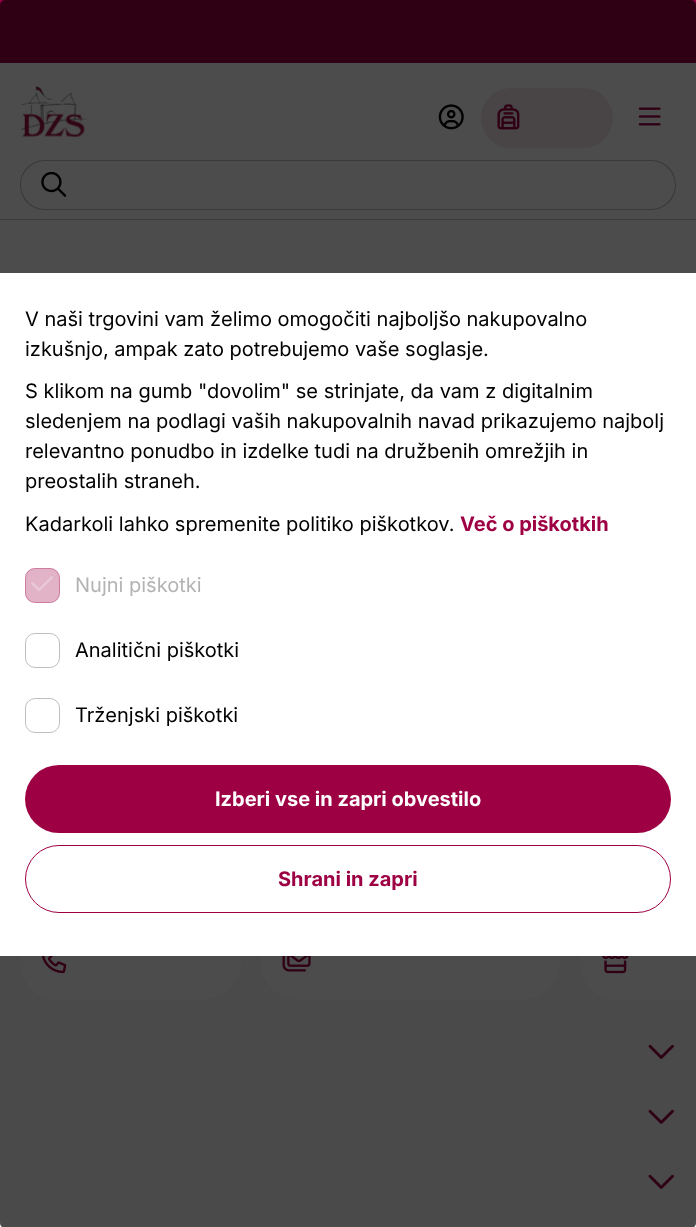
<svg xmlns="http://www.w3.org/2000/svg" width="696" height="1227">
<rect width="100%" height="100%" fill="#fff"/>
<rect width="696" height="63" fill="#9e0044"/>
<image x="21" y="85" width="66" height="53" href="media/1.png"/>
<image x="438" y="104" width="26" height="26" href="media/2.png"/>
<rect x="481" y="88" width="132" height="60" rx="30" fill="#f5e5ec"/>
<image x="497" y="104" width="23" height="26" href="media/3.png"/>
<image x="638" y="107" width="23" height="19" href="media/4.png"/>
<path d="M75 160h576c14 0 25 11 25 25c0 14-11 25-25 25h-576zm0 1h576c13 0 24 11 24 24c0 13-11 24-24 24h-576z" fill="#bfbfbf" fill-rule="evenodd"/>
<path d="M45 160h31v50h-31c-14 0-25-11-25-25c0-14 11-25 25-25zm0 1h31v48h-31c-13 0-24-11-24-24c0-13 11-24 24-24z" fill="#bfbfbf" fill-rule="evenodd"/>
<image x="41" y="171" width="26" height="26" href="media/5.png"/>
<rect y="219" width="696" height="1" fill="#bfbfbf"/>
<rect y="956" width="696" height="271" fill="#f7f7f7"/>
<rect x="20" y="923" width="221" height="77" rx="38.5" fill="#fff"/>
<image x="41" y="956" width="26" height="18" href="media/7.png"/>
<rect x="261" y="923" width="299" height="77" rx="38.5" fill="#fff"/>
<image x="282" y="956" width="29" height="16" href="media/8.png"/>
<path d="M618.5 923h77.5v77h-77.5c-21.5 0-38.5-17-38.5-38.5c0-21.5 17-38.5 38.5-38.5z" fill="#fff"/>
<image x="602" y="956" width="27" height="18" href="media/9.png"/>
<image x="648" y="1044" width="26" height="15" href="media/10.png"/>
<image x="648" y="1109" width="26" height="15" href="media/10.png"/>
<image x="648" y="1174" width="26" height="15" href="media/10.png"/>
<rect width="696" height="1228" rx="5" fill="#000000b3"/>
<rect y="273" width="696" height="683" fill="#fff"/>
<text x="25" y="326" style="font-family:Inter;font-size:20px;fill:#000">V naši trgovini vam želimo omogočiti najboljšo nakupovalno</text>
<text x="25" y="356" style="font-family:Inter;font-size:20px;fill:#000">izkušnjo, ampak zato potrebujemo vaše soglasje.</text>
<text x="25" y="398" style="font-family:Inter;font-size:20px;fill:#000">S klikom na gumb "dovolim" se strinjate, da vam z digitalnim</text>
<text x="25" y="428" style="font-family:Inter;font-size:20px;fill:#000">sledenjem na podlagi vaših nakupovalnih navad prikazujemo najbolj</text>
<text x="25" y="458" style="font-family:Inter;font-size:20px;fill:#000">relevantno ponudbo in izdelke tudi na družbenih omrežjih in</text>
<text x="25" y="488" style="font-family:Inter;font-size:20px;fill:#000">preostalih straneh.</text>
<text x="25" y="531" style="font-family:Inter;font-size:20px;fill:#000">Kadarkoli lahko spremenite politiko piškotkov.</text>
<text x="460" y="531" style="font-family:Inter;font-size:20px;font-weight:bold;fill:#9e0044">Več o piškotkih</text>
<rect x="25" y="568" width="35" height="35" rx="10" fill="#e2b3c7"/>
<rect x="25.5" y="568.5" width="34" height="34" rx="9.5" fill="none" stroke="#9e00444d"/>
<image x="31" y="576" width="22" height="15" href="media/6.png"/>
<text x="75" y="592" style="font-family:Inter;font-size:20px;fill:#b3b3b3">Nujni piškotki</text>
<rect x="25.5" y="633.5" width="34" height="34" rx="9.5" fill="none" stroke="#bfbfbf"/>
<text x="75" y="657" style="font-family:Inter;font-size:20px;fill:#000">Analitični piškotki</text>
<rect x="25.5" y="698.5" width="34" height="34" rx="9.5" fill="none" stroke="#bfbfbf"/>
<text x="75" y="722" style="font-family:Inter;font-size:20px;fill:#000">Trženjski piškotki</text>
<rect x="25" y="765" width="646" height="68" rx="34" fill="#9e0044"/>
<text x="215" y="806" style="font-family:Inter;font-size:20px;font-weight:bold;fill:#fff">Izberi vse in zapri obvestilo</text>
<rect x="25.5" y="845.5" width="645" height="67" rx="33.5" fill="none" stroke="#9e0044"/>
<text x="278" y="886" style="font-family:Inter;font-size:20px;font-weight:bold;fill:#9e0044">Shrani in zapri</text>
</svg>
